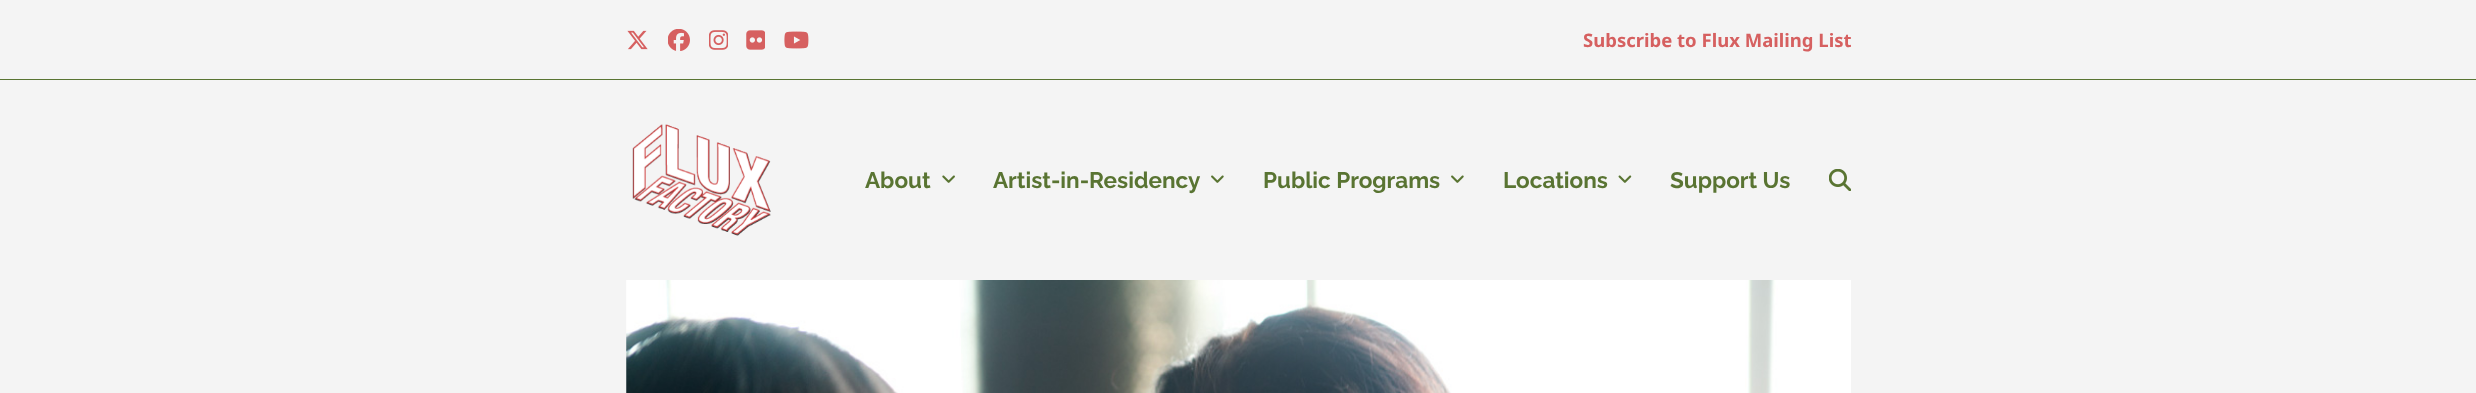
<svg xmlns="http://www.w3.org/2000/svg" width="2476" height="393">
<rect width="100%" height="100%" fill="#f4f4f4"/>
<rect y="79" width="2476" height="1" fill="#597432"/>
<image x="627" y="30" width="21" height="20" href="media/1.png"/>
<image x="668" y="29" width="22" height="22" href="media/2.png"/>
<image x="709" y="30" width="19" height="20" href="media/3.png"/>
<image x="746" y="30" width="19" height="20" href="media/4.png"/>
<image x="784" y="31" width="25" height="18" href="media/5.png"/>
<text x="1583" y="47" style="font-family:Noto Sans;font-size:18.5px;font-weight:bold;fill:#d66060">Subscribe to Flux Mailing List</text>
<image x="632" y="124" width="139" height="112" href="media/6.png"/>
<text x="865" y="188" style="font-family:Raleway;font-size:22.5px;font-weight:bold;fill:#597432">About</text>
<image x="942" y="175" width="13" height="8" href="media/7.png"/>
<text x="993" y="188" style="font-family:Raleway;font-size:22.5px;font-weight:bold;fill:#597432">Artist-in-Residency</text>
<image x="1211" y="175" width="13" height="8" href="media/8.png"/>
<text x="1263" y="188" style="font-family:Raleway;font-size:22.5px;font-weight:bold;fill:#597432">Public Programs</text>
<image x="1451" y="175" width="13" height="8" href="media/8.png"/>
<text x="1503" y="188" style="font-family:Raleway;font-size:22.5px;font-weight:bold;fill:#597432">Locations</text>
<image x="1618" y="175" width="14" height="8" href="media/9.png"/>
<text x="1670" y="188" style="font-family:Raleway;font-size:22.5px;font-weight:bold;fill:#597432">Support Us</text>
<image x="1829" y="169" width="22" height="22" href="media/10.png"/>
<image x="626" y="280" width="1225" height="113" href="media/11.png"/>
</svg>
